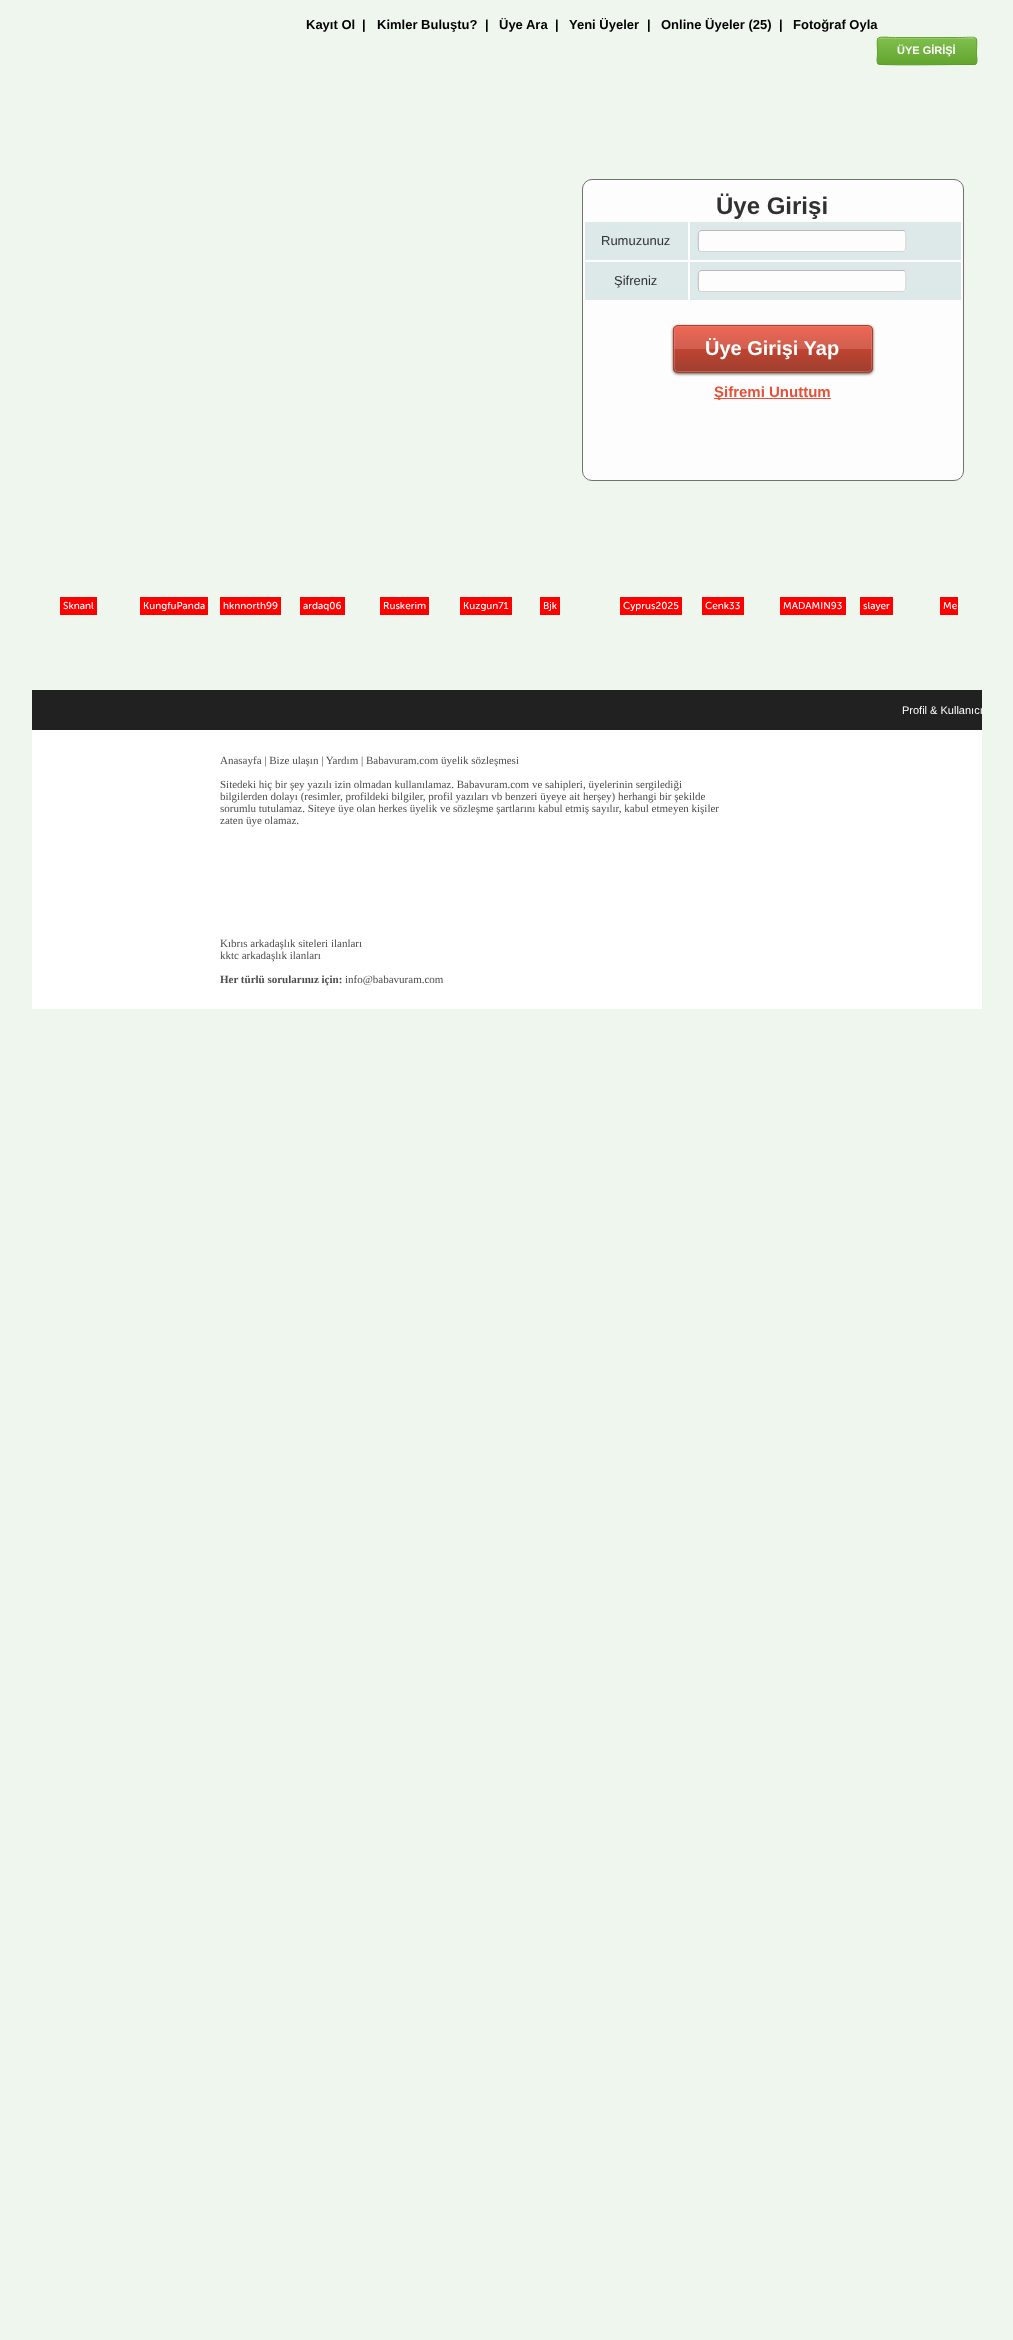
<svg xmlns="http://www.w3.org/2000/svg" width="1013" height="2340">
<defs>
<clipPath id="clip1"><rect x="877" y="37" width="100" height="28" rx="3"/></clipPath>
<linearGradient id="g1" gradientUnits="userSpaceOnUse" x1="927" y1="38" x2="927" y2="64"><stop offset="0" stop-color="#7fbf4d"/><stop offset="1" stop-color="#63a62f"/></linearGradient>
<linearGradient id="g2" gradientUnits="userSpaceOnUse" x1="927" y1="64" x2="927" y2="90"><stop offset="0" stop-color="#7fbf4d"/><stop offset="1" stop-color="#63a62f"/></linearGradient>
<clipPath id="clip2"><rect x="673" y="325" width="200" height="48" rx="5"/></clipPath>
<linearGradient id="g3" gradientUnits="userSpaceOnUse" x1="773" y1="326" x2="773" y2="372"><stop offset="0" stop-color="#ee6754"/><stop offset="0.5" stop-color="#ce5f50"/><stop offset="0.5" stop-color="#c14430"/><stop offset="1" stop-color="#9d3f30"/></linearGradient>
</defs>
<rect width="100%" height="100%" fill="#eff6ee"/>
<text x="306" y="29" style="font-family:Liberation Sans;font-size:13px;font-weight:bold;fill:#000">Kayıt Ol</text>
<text x="362" y="29" style="font-family:Liberation Sans;font-size:13px;font-weight:bold;fill:#000">|</text>
<text x="377" y="29" style="font-family:Liberation Sans;font-size:13px;font-weight:bold;fill:#000">Kimler Buluştu?</text>
<text x="485" y="29" style="font-family:Liberation Sans;font-size:13px;font-weight:bold;fill:#000">|</text>
<text x="499" y="29" style="font-family:Liberation Sans;font-size:13px;font-weight:bold;fill:#000">Üye Ara</text>
<text x="555" y="29" style="font-family:Liberation Sans;font-size:13px;font-weight:bold;fill:#000">|</text>
<text x="569" y="29" style="font-family:Liberation Sans;font-size:13px;font-weight:bold;fill:#000">Yeni Üyeler</text>
<text x="647" y="29" style="font-family:Liberation Sans;font-size:13px;font-weight:bold;fill:#000">|</text>
<text x="661" y="29" style="font-family:Liberation Sans;font-size:13px;font-weight:bold;fill:#000">Online Üyeler (25)</text>
<text x="779" y="29" style="font-family:Liberation Sans;font-size:13px;font-weight:bold;fill:#000">|</text>
<text x="793" y="29" style="font-family:Liberation Sans;font-size:13px;font-weight:bold;fill:#000">Fotoğraf Oyla</text>
<g clip-path="url(#clip1)">
<rect x="877" y="38" width="100" height="26" fill="url(#g1)"/>
<rect x="877" y="64" width="100" height="1" fill="url(#g2)"/>
</g>
<path d="M880 39h94c1 0 2 1 2 2c0-1 0-3-2-3h-78c-2 0-18-4-18 3c0-1 1-2 2-2z" fill="#96ca6d"/>
<path d="M976 64l-2 .5h-15.5c-8.5 0-78 1-80-.5h-.5" fill="none" stroke="#5b992b"/>
<path d="M878 64c-2-2.5-.5-7-.5-9.5c0-21-4-17 18-17h63c22 0 18-4 18 17c0 2.5 1.5 7-.5 9.5" fill="none" stroke="#63a62f"/>
<text x="897" y="54" style="font-family:Liberation Sans;font-size:11px;font-weight:bold;fill:#fff">ÜYE GİRİŞİ</text>
<rect x="582.5" y="179.5" width="381" height="301" rx="9.5" fill="#fcfdfc" stroke="#717371"/>
<text x="716" y="214" style="font-family:Liberation Sans;font-size:24px;font-weight:bold;fill:#303130">Üye Girişi</text>
<rect x="585" y="222" width="103" height="38" fill="#dde8e9"/>
<text x="601" y="245" style="font-family:Liberation Sans;font-size:13px;fill:#303130">Rumuzunuz</text>
<rect x="690" y="222" width="271" height="38" fill="#dde8e9"/>
<rect x="698" y="230" width="208" height="22" rx="3" fill="#fcfdfc"/>
<path d="M905 231c1 1.5 1 18.5 0 19.5l-2 1h-202l-2-.5" fill="none" stroke="#d3d4d3"/>
<path d="M699 251c-1-1.5-1-18.5 0-19.5l2-1h202l2 .5" fill="none" stroke="#b8b9b8"/>
<rect x="585" y="262" width="103" height="38" fill="#dde8e9"/>
<text x="614" y="285" style="font-family:Liberation Sans;font-size:13px;fill:#303130">Şifreniz</text>
<rect x="690" y="262" width="271" height="38" fill="#dde8e9"/>
<rect x="698" y="270" width="208" height="22" rx="3" fill="#fcfdfc"/>
<path d="M905 271c1 1.5 1 18.5 0 19.5l-2 1h-202l-2-.5" fill="none" stroke="#d3d4d3"/>
<path d="M699 291c-1-1.5-1-18.5 0-19.5l2-1h202l2 .5" fill="none" stroke="#b8b9b8"/>
<rect x="673" y="326" width="200" height="48" rx="5" fill="#595a58" filter="blur(1.5px)"/>
<g clip-path="url(#clip2)">
<rect x="673" y="326" width="200" height="46" fill="url(#g3)"/>
</g>
<rect x="674.5" y="326.5" width="197" height="45" rx="3.5" fill="none" stroke="#fc8d8066"/>
<rect x="673.5" y="325.5" width="199" height="47" rx="4.5" fill="none" stroke="#a73f30"/>
<text x="705" y="355" style="font-family:Liberation Sans;font-size:20px;font-weight:bold;fill:#fff">Üye Girişi Yap</text>
<rect x="714" y="398" width="117" height="1" fill="#e95038"/>
<text x="714" y="397" style="font-family:Liberation Sans;font-size:15px;font-weight:bold;fill:#e95038">Şifremi Unuttum</text>
<rect x="60" y="597" width="37" height="18" fill="#f00"/>
<text x="63" y="609" style="font-family:'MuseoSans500';font-size:10px;fill:#fff">Sknanl</text>
<rect x="140" y="597" width="68" height="18" fill="#f00"/>
<text x="143" y="609" style="font-family:'MuseoSans500';font-size:10px;fill:#fff">KungfuPanda</text>
<rect x="220" y="597" width="61" height="18" fill="#f00"/>
<text x="223" y="609" style="font-family:'MuseoSans500';font-size:10px;fill:#fff">hknnorth99</text>
<rect x="300" y="597" width="45" height="18" fill="#f00"/>
<text x="303" y="609" style="font-family:'MuseoSans500';font-size:10px;fill:#fff">ardaq06</text>
<rect x="380" y="597" width="49" height="18" fill="#f00"/>
<text x="383" y="609" style="font-family:'MuseoSans500';font-size:10px;fill:#fff">Ruskerim</text>
<rect x="460" y="597" width="52" height="18" fill="#f00"/>
<text x="463" y="609" style="font-family:'MuseoSans500';font-size:10px;fill:#fff">Kuzgun71</text>
<rect x="540" y="597" width="20" height="18" fill="#f00"/>
<text x="543" y="609" style="font-family:'MuseoSans500';font-size:10px;fill:#fff">Bjk</text>
<rect x="620" y="597" width="62" height="18" fill="#f00"/>
<text x="623" y="609" style="font-family:'MuseoSans500';font-size:10px;fill:#fff">Cyprus2025</text>
<rect x="702" y="597" width="42" height="18" fill="#f00"/>
<text x="705" y="609" style="font-family:'MuseoSans500';font-size:10px;fill:#fff">Cenk33</text>
<rect x="780" y="597" width="66" height="18" fill="#f00"/>
<text x="783" y="609" style="font-family:'MuseoSans500';font-size:10px;fill:#fff">MADAMIN93</text>
<rect x="860" y="597" width="33" height="18" fill="#f00"/>
<text x="863" y="609" style="font-family:'MuseoSans500';font-size:10px;fill:#fff">slayer</text>
<rect x="940" y="597" width="18" height="18" fill="#f00"/>
<text x="943" y="609" style="font-family:'MuseoSans500';font-size:10px;fill:#fff">Me</text>
<rect x="32" y="690" width="950" height="40" fill="#212121"/>
<text x="902" y="714" style="font-family:Liberation Sans;font-size:11px;fill:#fff">Profil &amp; Kullanıcı</text>
<rect x="32" y="730" width="950" height="279" fill="#fff"/>
<text x="220" y="764" style="font-family:Liberation Serif;font-size:11px;fill:#4c4c4c">Anasayfa | Bize ulaşın | Yardım | Babavuram.com üyelik sözleşmesi</text>
<text x="220" y="788" style="font-family:Liberation Serif;font-size:11px;fill:#4c4c4c">Sitedeki hiç bir şey yazılı izin olmadan kullanılamaz. Babavuram.com ve sahipleri, üyelerinin sergilediği</text>
<text x="220" y="800" style="font-family:Liberation Serif;font-size:11px;fill:#4c4c4c">bilgilerden dolayı (resimler, profildeki bilgiler, profil yazıları vb benzeri üyeye ait herşey) herhangi bir şekilde</text>
<text x="220" y="812" style="font-family:Liberation Serif;font-size:11px;fill:#4c4c4c">sorumlu tutulamaz. Siteye üye olan herkes üyelik ve sözleşme şartlarını kabul etmiş sayılır, kabul etmeyen kişiler</text>
<text x="220" y="824" style="font-family:Liberation Serif;font-size:11px;fill:#4c4c4c">zaten üye olamaz.</text>
<text x="220" y="947" style="font-family:Liberation Serif;font-size:11px;fill:#4c4c4c">Kıbrıs arkadaşlık siteleri ilanları</text>
<text x="220" y="959" style="font-family:Liberation Serif;font-size:11px;fill:#4c4c4c">kktc arkadaşlık ilanları</text>
<text x="220" y="983" style="font-family:Liberation Serif;font-size:11px;font-weight:bold;fill:#4c4c4c">Her türlü sorularınız için:</text>
<text x="345" y="983" style="font-family:Liberation Serif;font-size:11px;fill:#4c4c4c">info@babavuram.com</text>
</svg>
